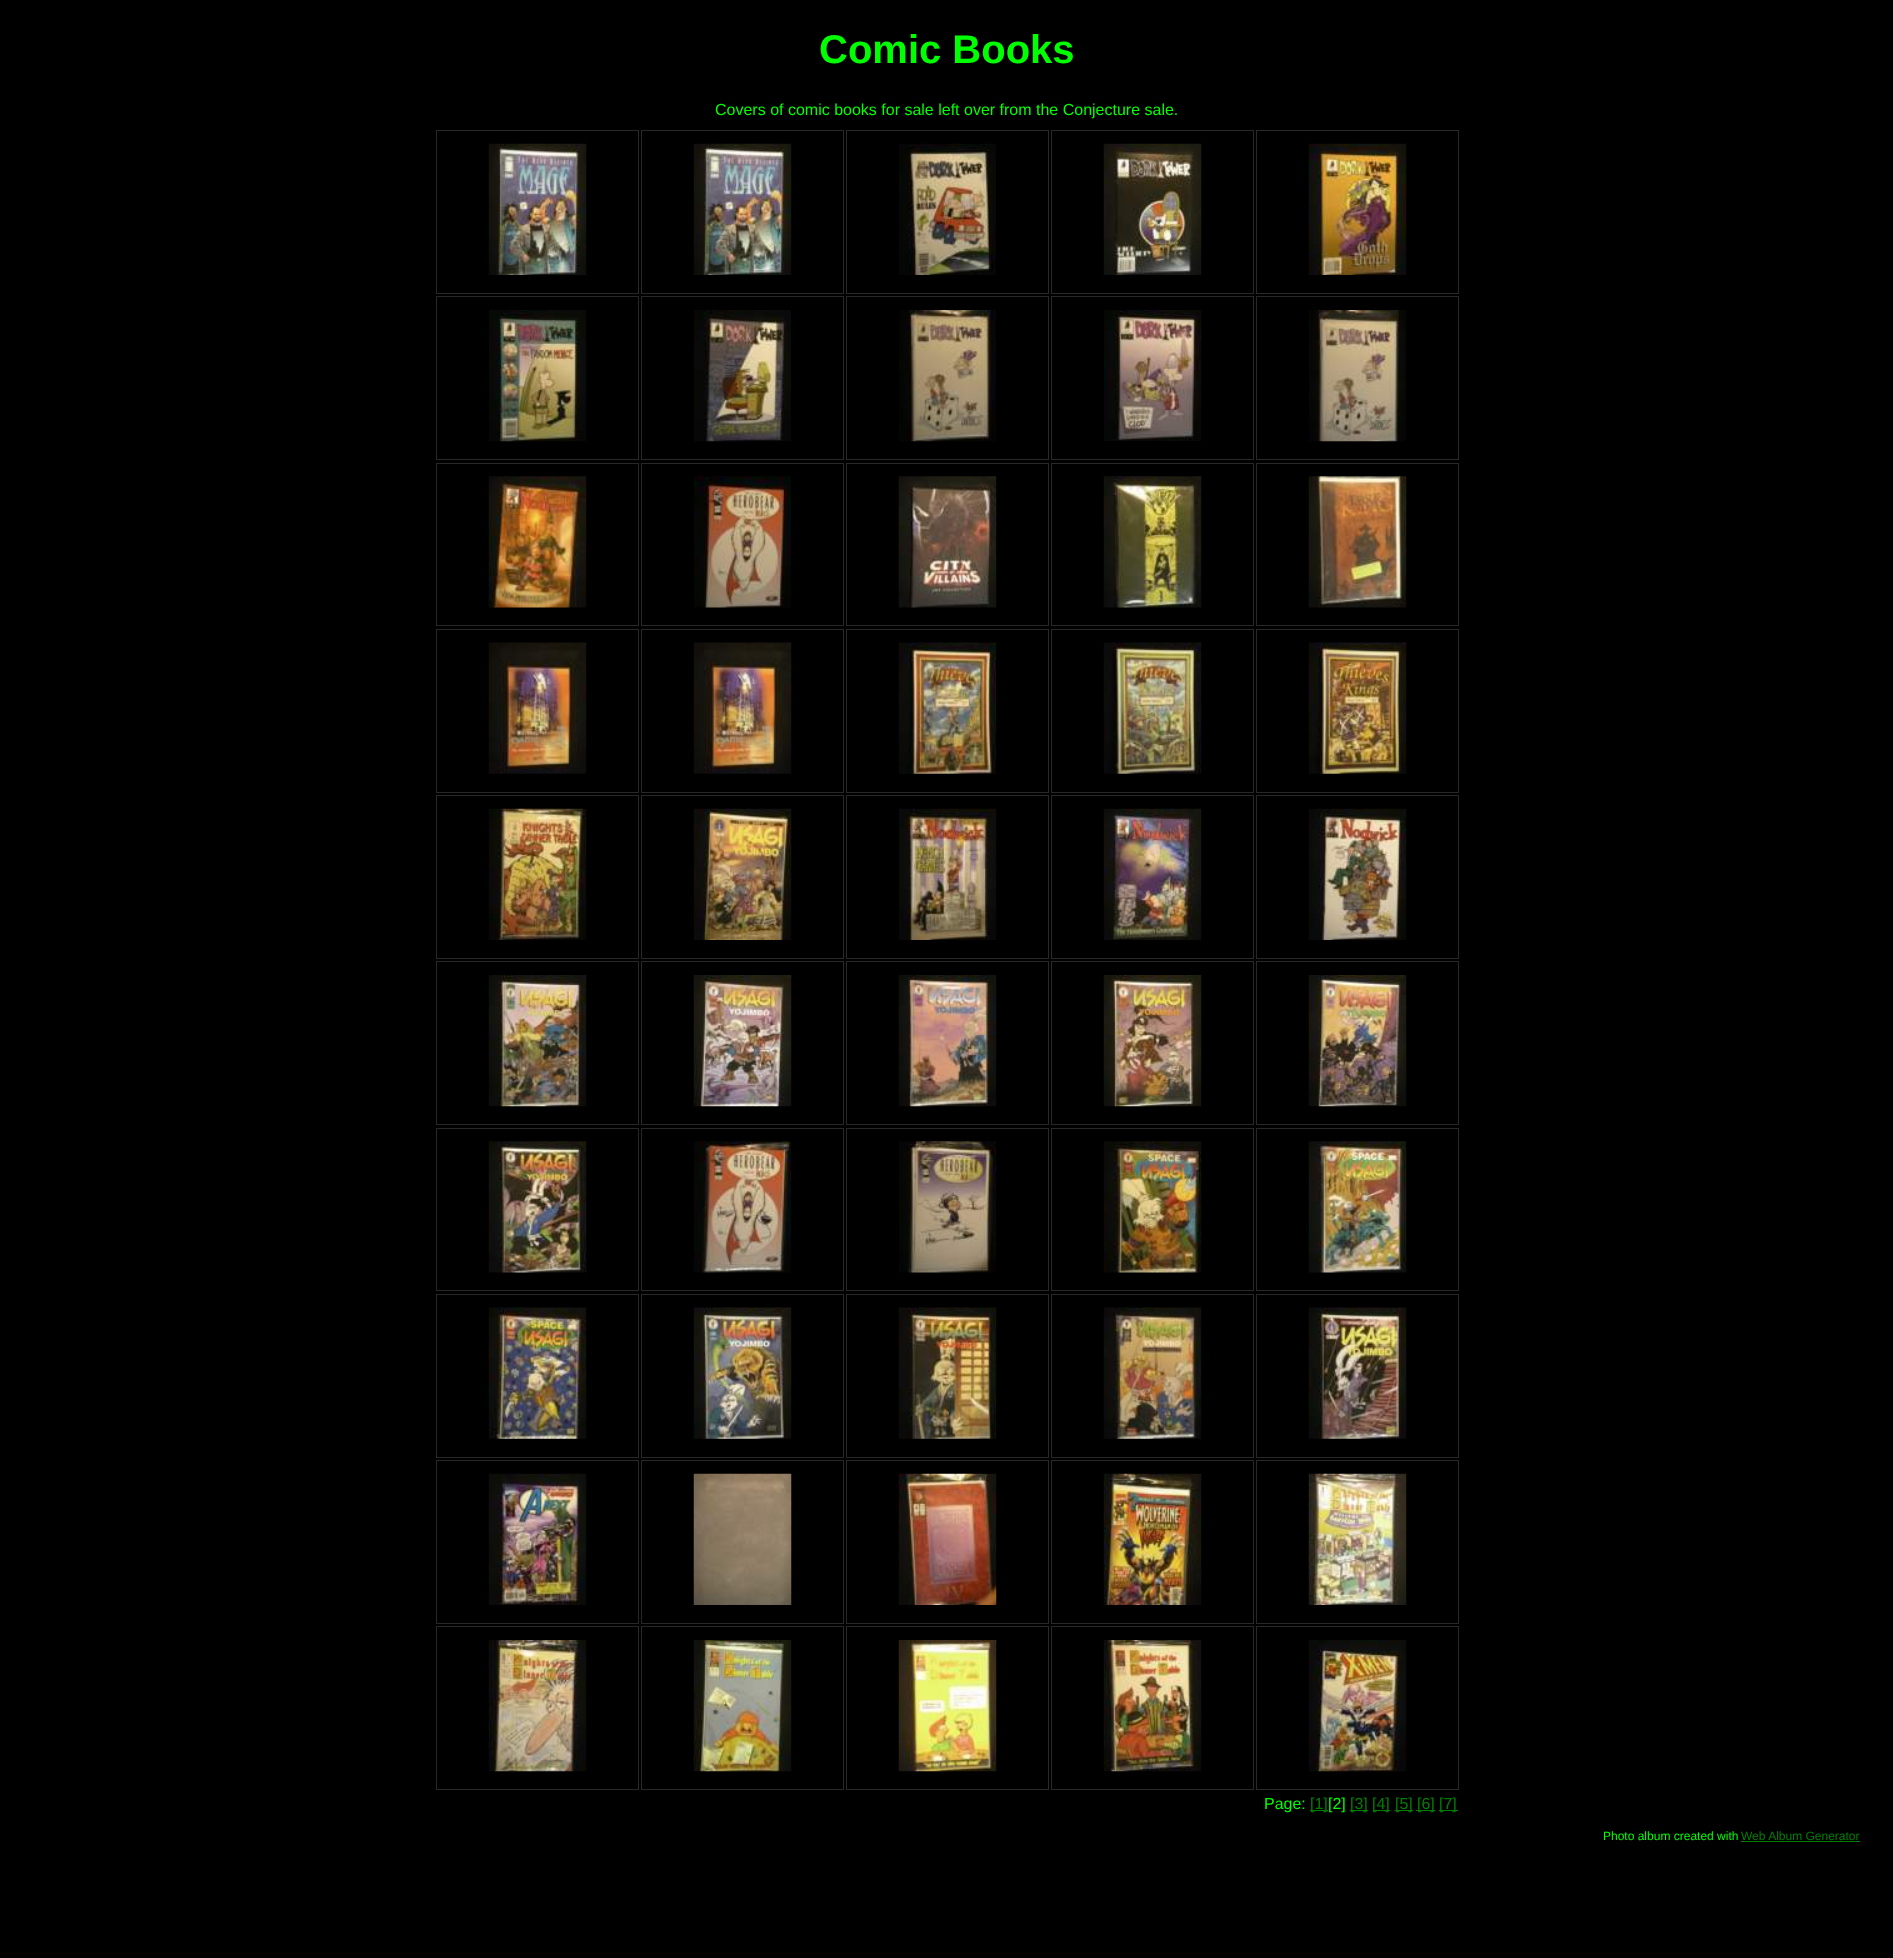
<svg xmlns="http://www.w3.org/2000/svg" width="1893" height="1958">
<rect width="100%" height="100%" fill="#000"/>
<text x="819" y="63" style="font-family:Liberation Sans;font-size:40px;font-weight:bold;fill:#0f0">Comic Books</text>
<text x="715" y="115" style="font-family:Liberation Sans;font-size:16px;fill:#0f0">Covers of comic books for sale left over from the Conjecture sale.</text>
<rect x="436.5" y="130.5" width="202" height="163" fill="none" stroke="#282828"/>
<image x="488" y="143" width="99" height="132" href="media/1.png"/>
<rect x="641.5" y="130.5" width="202" height="163" fill="none" stroke="#282828"/>
<image x="693" y="143" width="99" height="132" href="media/2.png"/>
<rect x="846.5" y="130.5" width="202" height="163" fill="none" stroke="#282828"/>
<image x="899" y="143" width="97" height="132" href="media/3.png"/>
<rect x="1051.5" y="130.5" width="202" height="163" fill="none" stroke="#282828"/>
<image x="1103" y="143" width="99" height="132" href="media/4.png"/>
<rect x="1256.5" y="130.5" width="202" height="163" fill="none" stroke="#282828"/>
<image x="1308" y="143" width="99" height="132" href="media/5.png"/>
<rect x="436.5" y="296.5" width="202" height="163" fill="none" stroke="#282828"/>
<image x="489" y="310" width="98" height="132" href="media/6.png"/>
<rect x="641.5" y="296.5" width="202" height="163" fill="none" stroke="#282828"/>
<image x="694" y="310" width="97" height="132" href="media/7.png"/>
<rect x="846.5" y="296.5" width="202" height="163" fill="none" stroke="#282828"/>
<image x="899" y="310" width="97" height="132" href="media/8.png"/>
<rect x="1051.5" y="296.5" width="202" height="163" fill="none" stroke="#282828"/>
<image x="1104" y="310" width="98" height="131" href="media/9.png"/>
<rect x="1256.5" y="296.5" width="202" height="163" fill="none" stroke="#282828"/>
<image x="1309" y="310" width="97" height="132" href="media/10.png"/>
<rect x="436.5" y="463.5" width="202" height="162" fill="none" stroke="#282828"/>
<image x="488" y="476" width="99" height="132" href="media/11.png"/>
<rect x="641.5" y="463.5" width="202" height="162" fill="none" stroke="#282828"/>
<image x="694" y="476" width="97" height="132" href="media/12.png"/>
<rect x="846.5" y="463.5" width="202" height="162" fill="none" stroke="#282828"/>
<image x="898" y="476" width="99" height="132" href="media/13.png"/>
<rect x="1051.5" y="463.5" width="202" height="162" fill="none" stroke="#282828"/>
<image x="1103" y="476" width="99" height="132" href="media/14.png"/>
<rect x="1256.5" y="463.5" width="202" height="162" fill="none" stroke="#282828"/>
<image x="1308" y="476" width="99" height="132" href="media/15.png"/>
<rect x="436.5" y="629.5" width="202" height="163" fill="none" stroke="#282828"/>
<image x="488" y="642" width="99" height="132" href="media/16.png"/>
<rect x="641.5" y="629.5" width="202" height="163" fill="none" stroke="#282828"/>
<image x="693" y="642" width="99" height="132" href="media/17.png"/>
<rect x="846.5" y="629.5" width="202" height="163" fill="none" stroke="#282828"/>
<image x="898" y="642" width="99" height="132" href="media/18.png"/>
<rect x="1051.5" y="629.5" width="202" height="163" fill="none" stroke="#282828"/>
<image x="1103" y="642" width="99" height="132" href="media/19.png"/>
<rect x="1256.5" y="629.5" width="202" height="163" fill="none" stroke="#282828"/>
<image x="1308" y="642" width="99" height="132" href="media/20.png"/>
<rect x="436.5" y="795.5" width="202" height="163" fill="none" stroke="#282828"/>
<image x="488" y="808" width="99" height="132" href="media/21.png"/>
<rect x="641.5" y="795.5" width="202" height="163" fill="none" stroke="#282828"/>
<image x="693" y="808" width="99" height="132" href="media/22.png"/>
<rect x="846.5" y="795.5" width="202" height="163" fill="none" stroke="#282828"/>
<image x="899" y="808" width="98" height="132" href="media/23.png"/>
<rect x="1051.5" y="795.5" width="202" height="163" fill="none" stroke="#282828"/>
<image x="1103" y="808" width="99" height="132" href="media/24.png"/>
<rect x="1256.5" y="795.5" width="202" height="163" fill="none" stroke="#282828"/>
<image x="1308" y="808" width="99" height="132" href="media/25.png"/>
<rect x="436.5" y="961.5" width="202" height="163" fill="none" stroke="#282828"/>
<image x="488" y="975" width="99" height="132" href="media/26.png"/>
<rect x="641.5" y="961.5" width="202" height="163" fill="none" stroke="#282828"/>
<image x="693" y="975" width="99" height="132" href="media/27.png"/>
<rect x="846.5" y="961.5" width="202" height="163" fill="none" stroke="#282828"/>
<image x="898" y="975" width="99" height="132" href="media/28.png"/>
<rect x="1051.5" y="961.5" width="202" height="163" fill="none" stroke="#282828"/>
<image x="1103" y="975" width="99" height="132" href="media/29.png"/>
<rect x="1256.5" y="961.5" width="202" height="163" fill="none" stroke="#282828"/>
<image x="1308" y="975" width="99" height="132" href="media/30.png"/>
<rect x="436.5" y="1128.5" width="202" height="162" fill="none" stroke="#282828"/>
<image x="488" y="1141" width="99" height="132" href="media/31.png"/>
<rect x="641.5" y="1128.5" width="202" height="162" fill="none" stroke="#282828"/>
<image x="693" y="1141" width="99" height="132" href="media/32.png"/>
<rect x="846.5" y="1128.5" width="202" height="162" fill="none" stroke="#282828"/>
<image x="899" y="1141" width="98" height="132" href="media/33.png"/>
<rect x="1051.5" y="1128.5" width="202" height="162" fill="none" stroke="#282828"/>
<image x="1103" y="1141" width="99" height="132" href="media/34.png"/>
<rect x="1256.5" y="1128.5" width="202" height="162" fill="none" stroke="#282828"/>
<image x="1308" y="1141" width="99" height="132" href="media/35.png"/>
<rect x="436.5" y="1294.5" width="202" height="163" fill="none" stroke="#282828"/>
<image x="488" y="1307" width="99" height="132" href="media/36.png"/>
<rect x="641.5" y="1294.5" width="202" height="163" fill="none" stroke="#282828"/>
<image x="693" y="1307" width="99" height="132" href="media/37.png"/>
<rect x="846.5" y="1294.5" width="202" height="163" fill="none" stroke="#282828"/>
<image x="898" y="1307" width="99" height="132" href="media/38.png"/>
<rect x="1051.5" y="1294.5" width="202" height="163" fill="none" stroke="#282828"/>
<image x="1103" y="1307" width="99" height="132" href="media/39.png"/>
<rect x="1256.5" y="1294.5" width="202" height="163" fill="none" stroke="#282828"/>
<image x="1308" y="1307" width="99" height="132" href="media/40.png"/>
<rect x="436.5" y="1460.5" width="202" height="163" fill="none" stroke="#282828"/>
<image x="488" y="1473" width="99" height="132" href="media/41.png"/>
<rect x="641.5" y="1460.5" width="202" height="163" fill="none" stroke="#282828"/>
<image x="693" y="1473" width="99" height="132" href="media/42.png"/>
<rect x="846.5" y="1460.5" width="202" height="163" fill="none" stroke="#282828"/>
<image x="898" y="1473" width="99" height="132" href="media/43.png"/>
<rect x="1051.5" y="1460.5" width="202" height="163" fill="none" stroke="#282828"/>
<image x="1103" y="1473" width="99" height="132" href="media/44.png"/>
<rect x="1256.5" y="1460.5" width="202" height="163" fill="none" stroke="#282828"/>
<image x="1308" y="1473" width="99" height="132" href="media/45.png"/>
<rect x="436.5" y="1626.5" width="202" height="163" fill="none" stroke="#282828"/>
<image x="488" y="1640" width="99" height="132" href="media/46.png"/>
<rect x="641.5" y="1626.5" width="202" height="163" fill="none" stroke="#282828"/>
<image x="693" y="1640" width="99" height="132" href="media/47.png"/>
<rect x="846.5" y="1626.5" width="202" height="163" fill="none" stroke="#282828"/>
<image x="898" y="1640" width="99" height="132" href="media/48.png"/>
<rect x="1051.5" y="1626.5" width="202" height="163" fill="none" stroke="#282828"/>
<image x="1103" y="1640" width="99" height="132" href="media/49.png"/>
<rect x="1256.5" y="1626.5" width="202" height="163" fill="none" stroke="#282828"/>
<image x="1308" y="1640" width="99" height="132" href="media/50.png"/>
<text x="1264" y="1809" style="font-family:Liberation Sans;font-size:16px;fill:#0f0">Page:</text>
<rect x="1310" y="1810" width="18" height="1" fill="#008000"/>
<text x="1310" y="1809" style="font-family:Liberation Sans;font-size:16px;fill:#008000">[1]</text>
<text x="1328" y="1809" style="font-family:Liberation Sans;font-size:16px;fill:#0f0">[2]</text>
<rect x="1350" y="1810" width="18" height="1" fill="#008000"/>
<text x="1350" y="1809" style="font-family:Liberation Sans;font-size:16px;fill:#008000">[3]</text>
<rect x="1373" y="1810" width="17" height="1" fill="#008000"/>
<text x="1372" y="1809" style="font-family:Liberation Sans;font-size:16px;fill:#008000">[4]</text>
<rect x="1395" y="1810" width="18" height="1" fill="#008000"/>
<text x="1395" y="1809" style="font-family:Liberation Sans;font-size:16px;fill:#008000">[5]</text>
<rect x="1416" y="1810" width="19" height="1" fill="#008000"/>
<text x="1417" y="1809" style="font-family:Liberation Sans;font-size:16px;fill:#008000">[6]</text>
<rect x="1439" y="1810" width="19" height="1" fill="#008000"/>
<text x="1439" y="1809" style="font-family:Liberation Sans;font-size:16px;fill:#008000">[7]</text>
<text x="1603" y="1840" style="font-family:Liberation Sans;font-size:12px;fill:#0f0">Photo album created with</text>
<text x="1741" y="1840" style="font-family:Liberation Sans;font-size:12px;fill:#008000">Web Album Generator</text>
<rect x="1741" y="1841" width="119" height="1" fill="#008000"/>
</svg>
